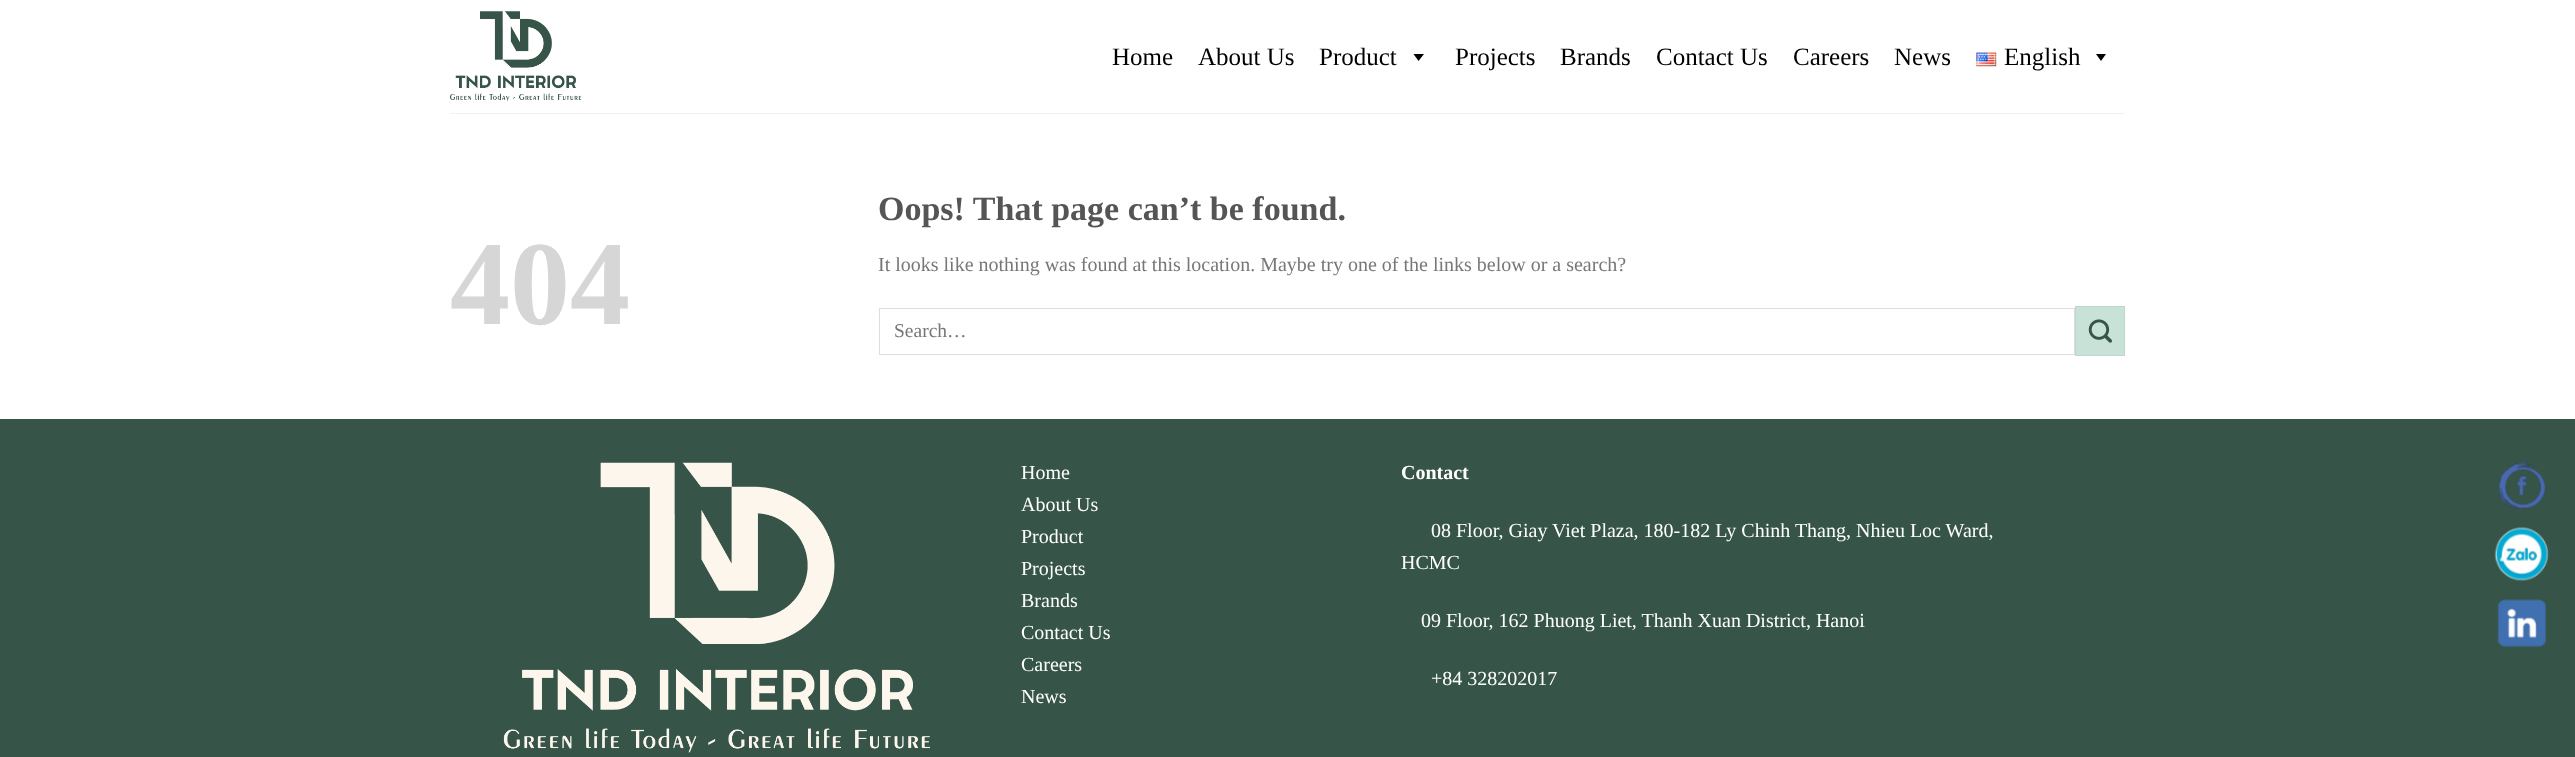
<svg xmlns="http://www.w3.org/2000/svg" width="2575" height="757">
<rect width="100%" height="100%" fill="#fff"/>
<image x="450" y="11" width="132" height="91" href="media/1.png"/>
<text x="1112" y="65" style="font-family:Liberation Serif;font-size:25px;fill:#000">Home</text>
<text x="1198" y="65" style="font-family:Liberation Serif;font-size:25px;fill:#000">About Us</text>
<text x="1319" y="65" style="font-family:Liberation Serif;font-size:25px;fill:#000">Product</text>
<path d="M1424 54l-5.5 7l-5-7z" fill="#000"/>
<text x="1455" y="65" style="font-family:Liberation Serif;font-size:25px;fill:#000">Projects</text>
<text x="1560" y="65" style="font-family:Liberation Serif;font-size:25px;fill:#000">Brands</text>
<text x="1656" y="65" style="font-family:Liberation Serif;font-size:25px;fill:#000">Contact Us</text>
<text x="1793" y="65" style="font-family:Liberation Serif;font-size:25px;fill:#000">Careers</text>
<text x="1894" y="65" style="font-family:Liberation Serif;font-size:25px;fill:#000">News</text>
<image x="1976" y="52" width="21" height="15" href="media/2.png"/>
<text x="2004" y="65" style="font-family:Liberation Serif;font-size:25px;fill:#000">English</text>
<path d="M2106 54l-5 7l-5-7z" fill="#000"/>
<rect x="450" y="113" width="1675" height="1" fill="#f1f1f1"/>
<text x="450" y="324" style="font-family:Liberation Serif;font-size:120px;font-weight:bold;fill:#d6d6d6">404</text>
<text x="878" y="220" style="font-family:Liberation Serif;font-size:34px;font-weight:bold;fill:#555">Oops! That page can’t be found.</text>
<text x="878" y="271" style="font-family:Liberation Serif;font-size:20px;fill:#777">It looks like nothing was found at this location. Maybe try one of the links below or a search?</text>
<rect x="879.5" y="308.5" width="1195" height="46" fill="none" stroke="#ddd"/>
<text x="894" y="337" style="font-family:Liberation Serif;font-size:19.5px;fill:#777">Search…</text>
<rect x="2075.5" y="306.5" width="49" height="49" fill="#c8e2d8" stroke="#bed7cd"/>
<image x="2088" y="319" width="24" height="24" href="media/3.png"/>
<rect y="419" width="2575" height="338" fill="#365448"/>
<image x="503" y="462" width="427" height="291" href="media/4.png"/>
<text x="1021" y="479" style="font-family:Liberation Serif;font-size:20px;fill:#fff">Home</text>
<text x="1021" y="511" style="font-family:Liberation Serif;font-size:20px;fill:#fff">About Us</text>
<text x="1021" y="543" style="font-family:Liberation Serif;font-size:20px;fill:#fff">Product</text>
<text x="1021" y="575" style="font-family:Liberation Serif;font-size:20px;fill:#fff">Projects</text>
<text x="1021" y="607" style="font-family:Liberation Serif;font-size:20px;fill:#fff">Brands</text>
<text x="1021" y="639" style="font-family:Liberation Serif;font-size:20px;fill:#fff">Contact Us</text>
<text x="1021" y="671" style="font-family:Liberation Serif;font-size:20px;fill:#fff">Careers</text>
<text x="1021" y="703" style="font-family:Liberation Serif;font-size:20px;fill:#fff">News</text>
<text x="1401" y="479" style="font-family:Liberation Serif;font-size:20px;font-weight:bold;fill:#fff">Contact</text>
<text x="1431" y="537" style="font-family:Liberation Serif;font-size:20px;fill:#fff">08 Floor, Giay Viet Plaza, 180-182 Ly Chinh Thang, Nhieu Loc Ward,</text>
<text x="1401" y="569" style="font-family:Liberation Serif;font-size:20px;fill:#fff">HCMC</text>
<text x="1421" y="627" style="font-family:Liberation Serif;font-size:20px;fill:#fff">09 Floor, 162 Phuong Liet, Thanh Xuan District, Hanoi</text>
<text x="1431" y="685" style="font-family:Liberation Serif;font-size:20px;fill:#fff">+84 328202017</text>
<image x="2498" y="462" width="48" height="48" href="media/5.png"/>
<image x="2494" y="527" width="55" height="54" href="media/6.png"/>
<image x="2497" y="599" width="50" height="49" href="media/7.png"/>
</svg>
